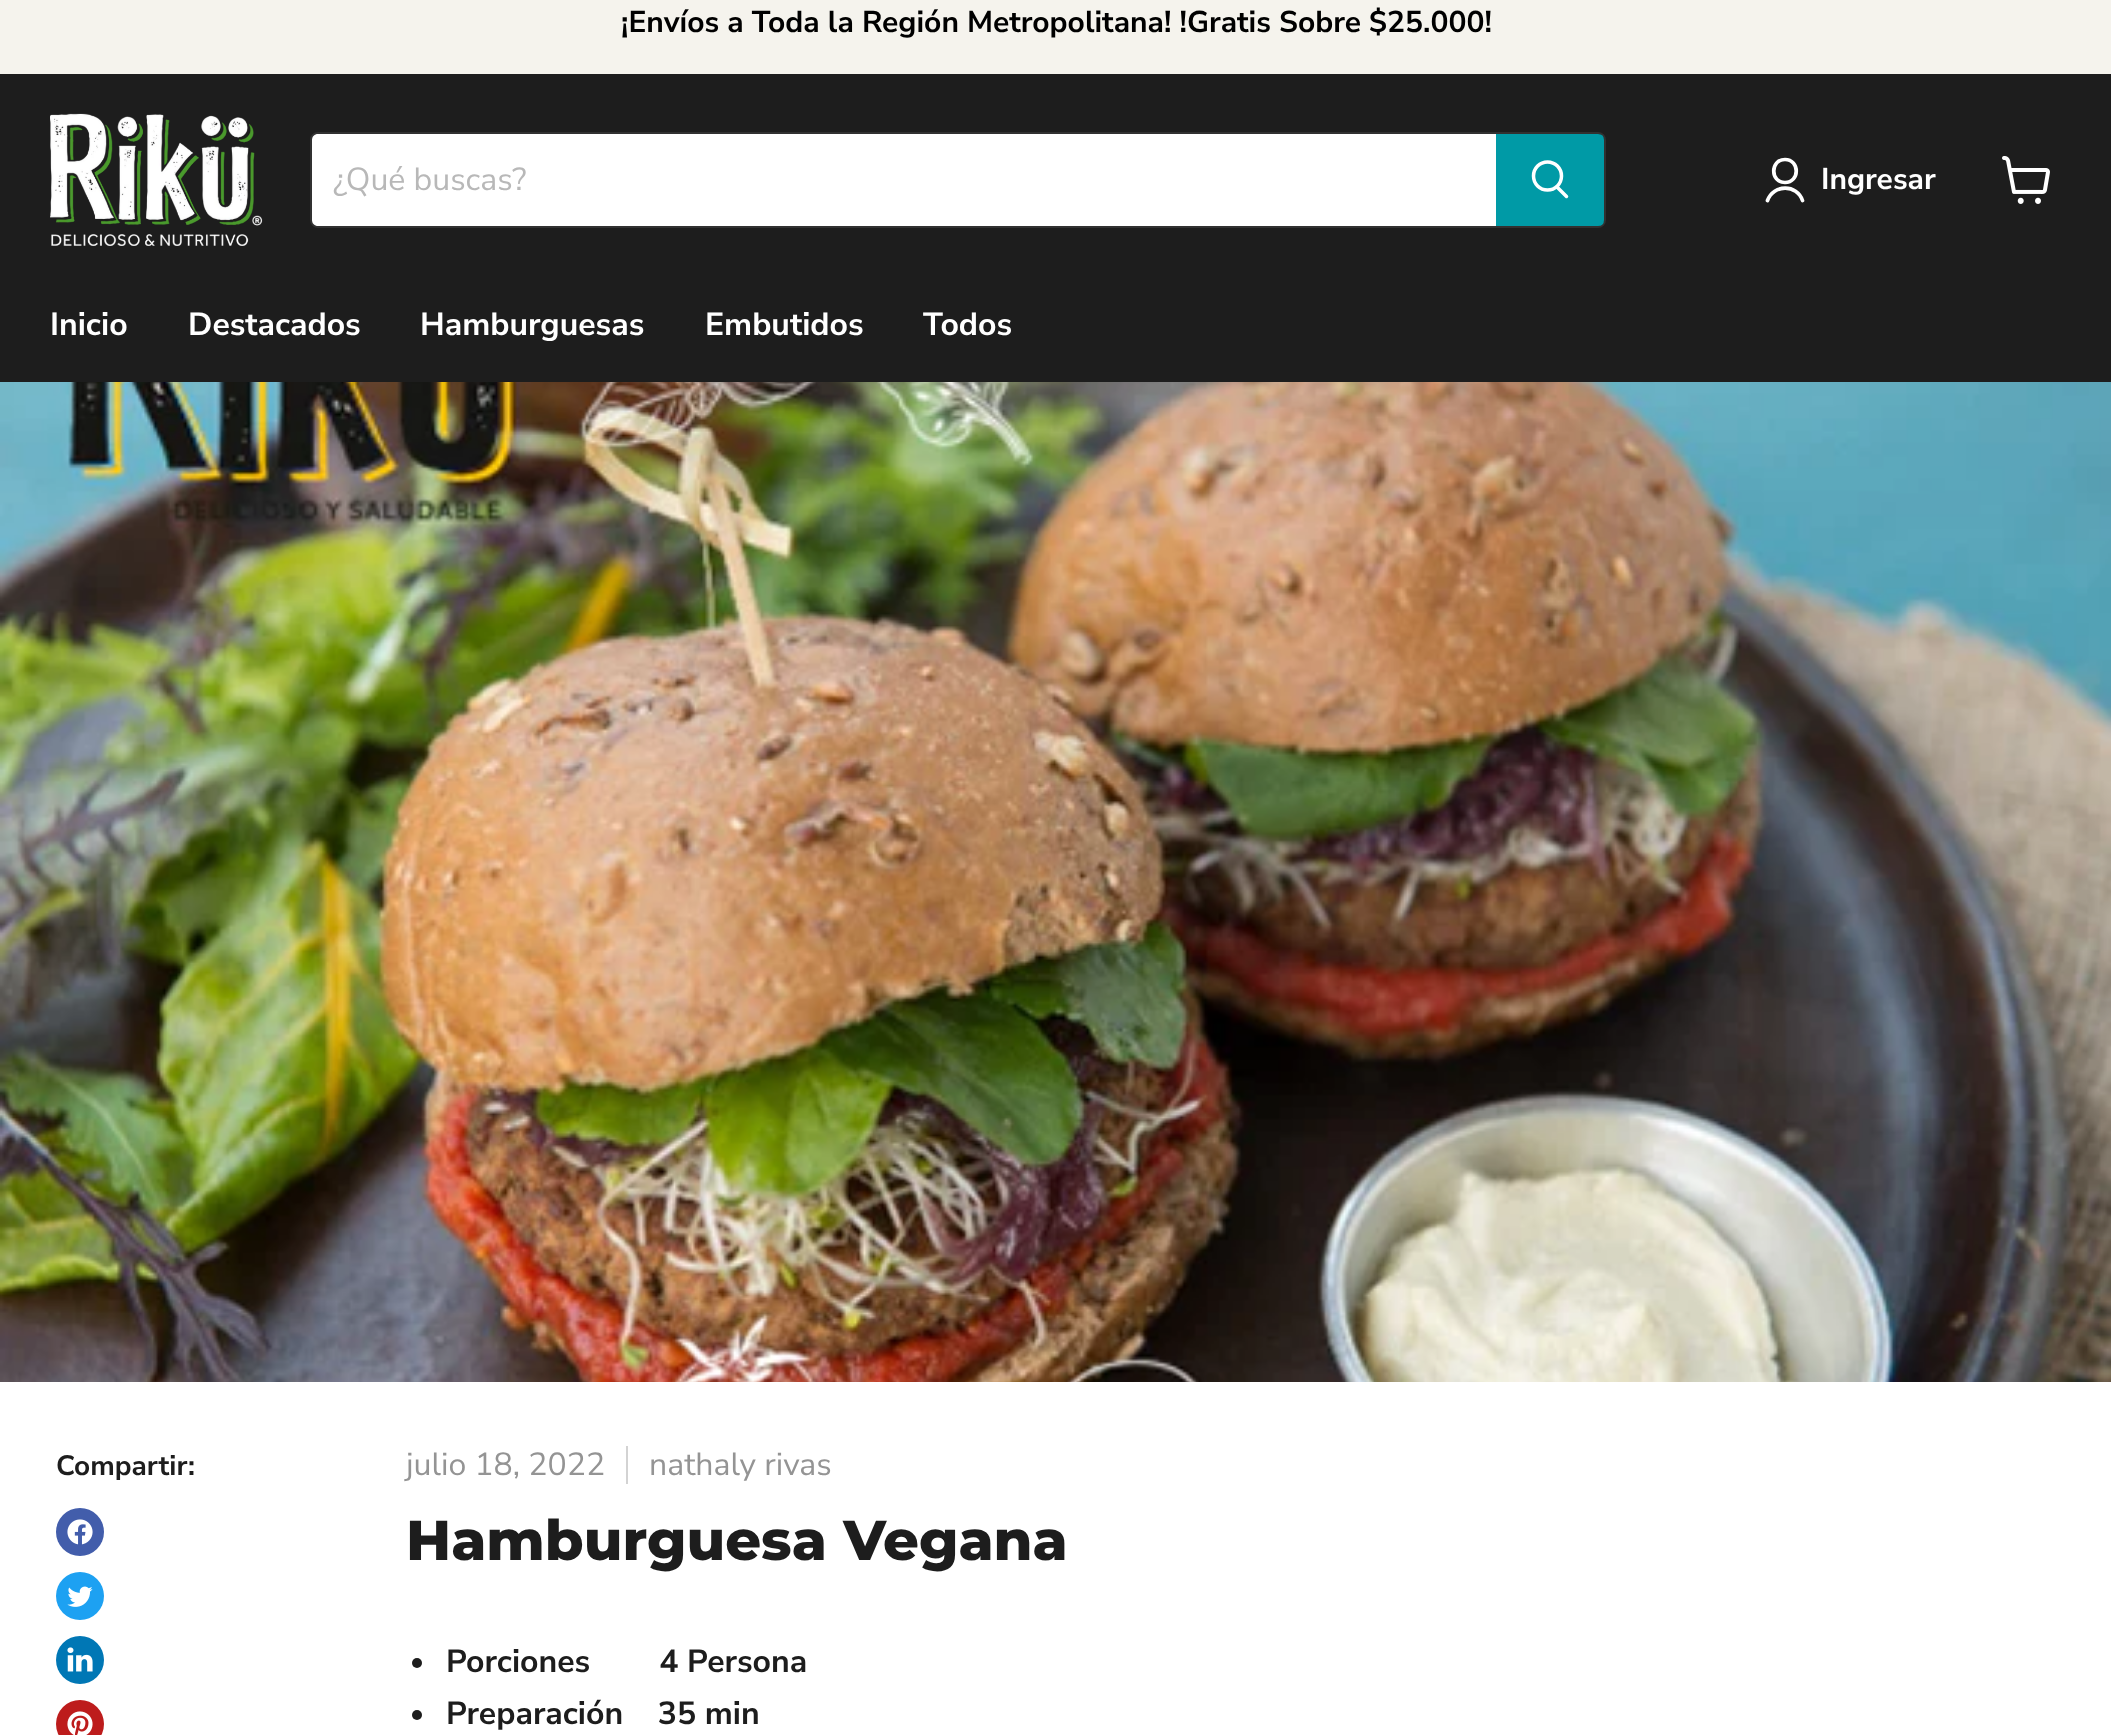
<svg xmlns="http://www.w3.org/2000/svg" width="2111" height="1735">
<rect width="100%" height="100%" fill="#fff"/>
<rect width="2111" height="74" fill="#f5f3ed"/>
<text x="621" y="32" style="font-family:Nunito Sans;font-size:30px;font-weight:bold;fill:#000">¡Envíos a Toda la Región Metropolitana! !Gratis Sobre $25.000!</text>
<rect y="74" width="2111" height="308" fill="#1d1d1d"/>
<image x="50" y="113" width="213" height="133" href="media/1.png"/>
<rect x="311" y="133" width="1294" height="94" rx="7" fill="none" stroke="#80808033" stroke-width="2"/>
<path d="M318 134h1178v92h-1178c-3.5 0-6-2.5-6-6v-80c0-3.5 2.5-6 6-6z" fill="#fff"/>
<text x="333" y="190" style="font-family:Nunito Sans;font-size:32px;fill:#b8b8b8">¿Qué buscas?</text>
<path d="M1497 135h101c3 0 5 2 5 5v80c0 3-2 5-5 5h-101z" fill="#009aa6" stroke="#009aa6" stroke-width="2"/>
<path d="M1566.5 196.5l-9.5-9.5" fill="none" stroke="#fff" stroke-width="3.5" stroke-linecap="round"/>
<circle cx="1547.5" cy="176" r="14" fill="none" stroke="#fff" stroke-width="3.5"/>
<path d="M1785 182.5c15 0 15-23 0-23c-15 0-15 23 0 23zm17.5 18c-5.5-16.5-29-16.5-35 0" fill="none" stroke="#fff" stroke-width="3.7" stroke-linecap="round" stroke-linejoin="round"/>
<text x="1821" y="189" style="font-family:Nunito Sans;font-size:30px;font-weight:bold;fill:#fff">Ingresar</text>
<image x="2002" y="156" width="48" height="48" href="media/2.png"/>
<text x="50" y="335" style="font-family:Nunito Sans;font-size:32px;font-weight:bold;fill:#fff">Inicio</text>
<text x="188" y="335" style="font-family:Nunito Sans;font-size:32px;font-weight:bold;fill:#fff">Destacados</text>
<text x="420" y="335" style="font-family:Nunito Sans;font-size:32px;font-weight:bold;fill:#fff">Hamburguesas</text>
<text x="705" y="335" style="font-family:Nunito Sans;font-size:32px;font-weight:bold;fill:#fff">Embutidos</text>
<text x="923" y="335" style="font-family:Nunito Sans;font-size:32px;font-weight:bold;fill:#fff">Todos</text>
<image x="0" y="382" width="2111" height="1000" href="media/3.png"/>
<text x="56" y="1475" style="font-family:Nunito Sans;font-size:28px;font-weight:bold;fill:#1d1d1d">Compartir:</text>
<circle cx="80" cy="1532" r="24" fill="#425dab"/>
<image x="67" y="1519" width="26" height="26" href="media/4.png"/>
<circle cx="80" cy="1596" r="24" fill="#1da1f2"/>
<image x="67" y="1586" width="26" height="21" href="media/5.png"/>
<circle cx="80" cy="1660" r="24" fill="#0077b5"/>
<image x="67" y="1647" width="26" height="25" href="media/6.png"/>
<circle cx="80" cy="1724" r="24" fill="#bd1c1c"/>
<image x="67" y="1711" width="26" height="24" href="media/7.png"/>
<text x="406" y="1475" style="font-family:Nunito Sans;font-size:32px;fill:#949494">julio 18, 2022</text>
<rect x="626" y="1446" width="2" height="38" fill="#d3d3d3"/>
<text x="649" y="1475" style="font-family:Nunito Sans;font-size:32px;fill:#949494">nathaly rivas</text>
<text x="406" y="1560" style="font-family:Montserrat;font-size:56px;font-weight:800;fill:#1d1d1d">Hamburguesa Vegana</text>
<circle cx="417" cy="1663" r="5" fill="#1d1d1d"/>
<text x="446" y="1672" style="font-family:Nunito Sans;font-size:32px;font-weight:bold;fill:#1d1d1d" xml:space="preserve">Porciones        4 Persona</text>
<circle cx="417" cy="1715" r="5" fill="#1d1d1d"/>
<text x="446" y="1724" style="font-family:Nunito Sans;font-size:32px;font-weight:bold;fill:#1d1d1d" xml:space="preserve">Preparación    35 min</text>
</svg>
